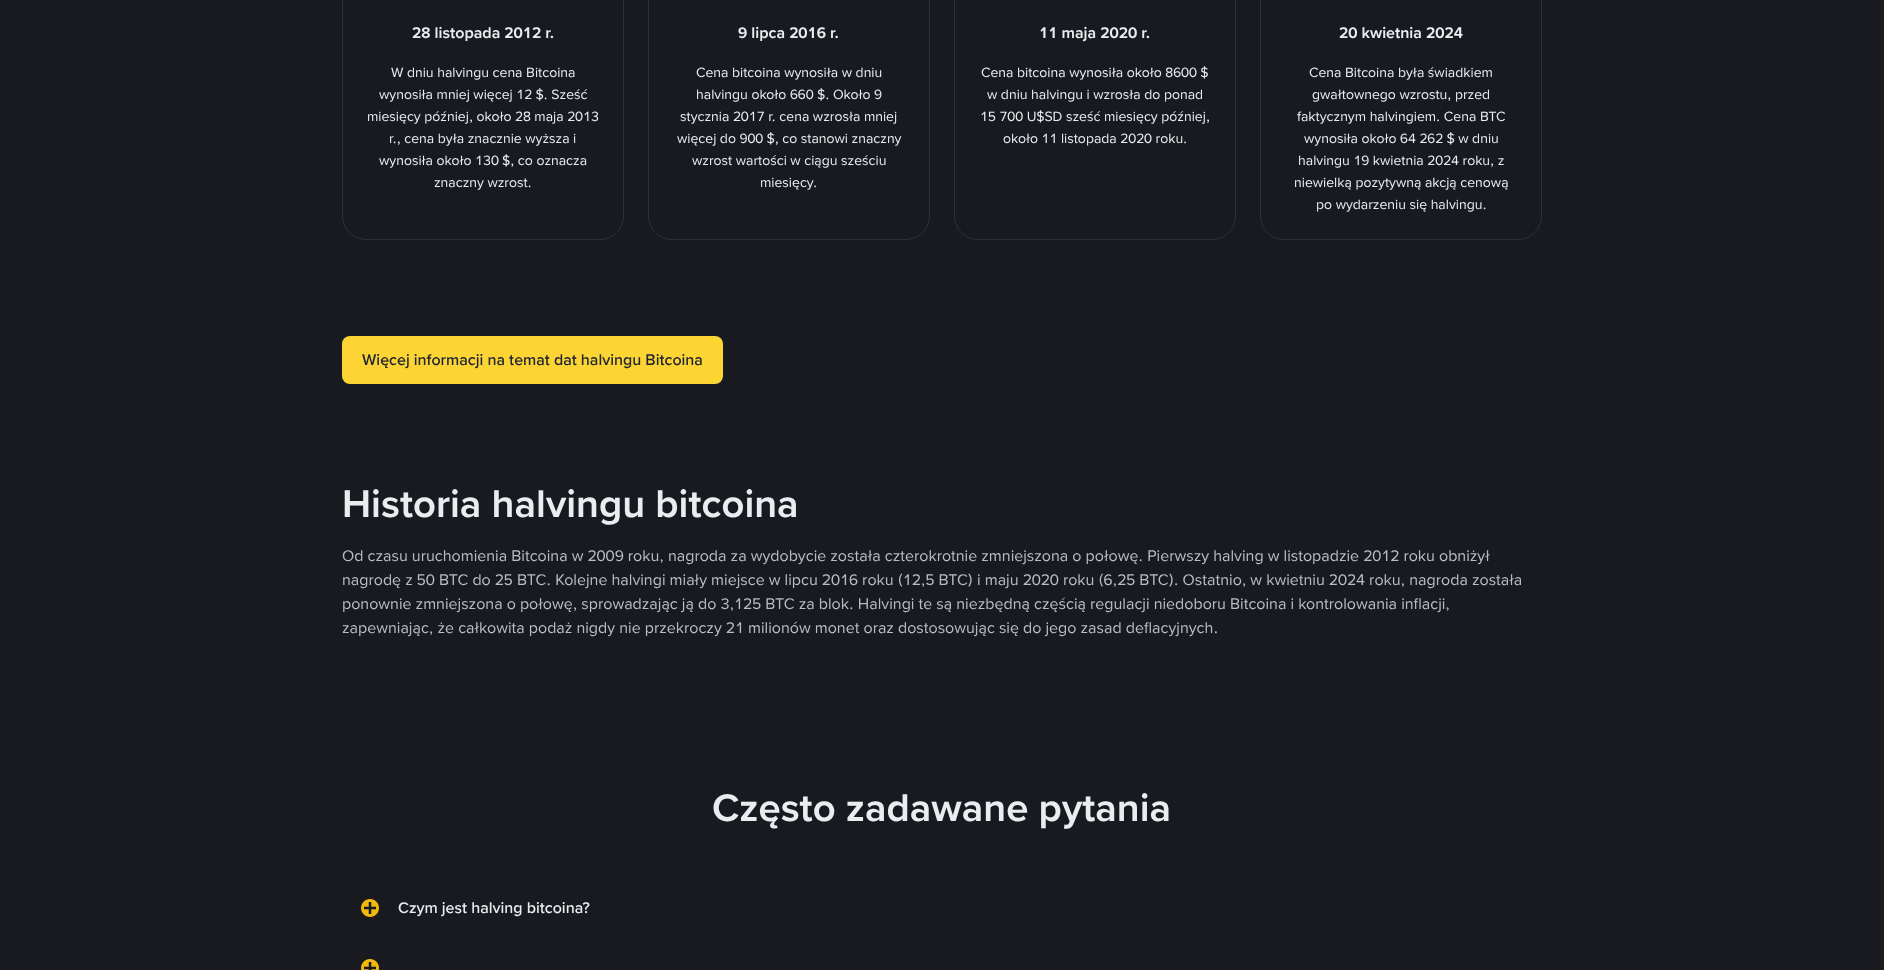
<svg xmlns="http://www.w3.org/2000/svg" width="1884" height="970">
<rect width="100%" height="100%" fill="#181a20"/>
<rect x="342.5" y="-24.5" width="281" height="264" rx="23.5" fill="none" stroke="#2b3139"/>
<text x="412" y="38" style="font-family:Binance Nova;font-size:16px;font-weight:600;fill:#eaecef">28 listopada 2012 r.</text>
<text x="391" y="77" style="font-family:Binance Nova;font-size:14px;fill:#eaecef">W dniu halvingu cena Bitcoina</text>
<text x="379" y="99" style="font-family:Binance Nova;font-size:14px;fill:#eaecef">wynosiła mniej więcej 12 $. Sześć</text>
<text x="367" y="121" style="font-family:Binance Nova;font-size:14px;fill:#eaecef">miesięcy później, około 28 maja 2013</text>
<text x="389" y="143" style="font-family:Binance Nova;font-size:14px;fill:#eaecef">r., cena była znacznie wyższa i</text>
<text x="379" y="165" style="font-family:Binance Nova;font-size:14px;fill:#eaecef">wynosiła około 130 $, co oznacza</text>
<text x="434" y="187" style="font-family:Binance Nova;font-size:14px;fill:#eaecef">znaczny wzrost.</text>
<rect x="648.5" y="-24.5" width="281" height="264" rx="23.5" fill="none" stroke="#2b3139"/>
<text x="738" y="38" style="font-family:Binance Nova;font-size:16px;font-weight:600;fill:#eaecef">9 lipca 2016 r.</text>
<text x="696" y="77" style="font-family:Binance Nova;font-size:14px;fill:#eaecef">Cena bitcoina wynosiła w dniu</text>
<text x="696" y="99" style="font-family:Binance Nova;font-size:14px;fill:#eaecef">halvingu około 660 $. Około 9</text>
<text x="680" y="121" style="font-family:Binance Nova;font-size:14px;fill:#eaecef">stycznia 2017 r. cena wzrosła mniej</text>
<text x="677" y="143" style="font-family:Binance Nova;font-size:14px;fill:#eaecef">więcej do 900 $, co stanowi znaczny</text>
<text x="692" y="165" style="font-family:Binance Nova;font-size:14px;fill:#eaecef">wzrost wartości w ciągu sześciu</text>
<text x="760" y="187" style="font-family:Binance Nova;font-size:14px;fill:#eaecef">miesięcy.</text>
<rect x="954.5" y="-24.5" width="281" height="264" rx="23.5" fill="none" stroke="#2b3139"/>
<text x="1039" y="38" style="font-family:Binance Nova;font-size:16px;font-weight:600;fill:#eaecef">11 maja 2020 r.</text>
<text x="981" y="77" style="font-family:Binance Nova;font-size:14px;fill:#eaecef">Cena bitcoina wynosiła około 8600 $</text>
<text x="987" y="99" style="font-family:Binance Nova;font-size:14px;fill:#eaecef">w dniu halvingu i wzrosła do ponad</text>
<text x="980" y="121" style="font-family:Binance Nova;font-size:14px;fill:#eaecef">15 700 U$SD sześć miesięcy później,</text>
<text x="1003" y="143" style="font-family:Binance Nova;font-size:14px;fill:#eaecef">około 11 listopada 2020 roku.</text>
<rect x="1260.5" y="-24.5" width="281" height="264" rx="23.5" fill="none" stroke="#2b3139"/>
<text x="1339" y="38" style="font-family:Binance Nova;font-size:16px;font-weight:600;fill:#eaecef">20 kwietnia 2024</text>
<text x="1309" y="77" style="font-family:Binance Nova;font-size:14px;fill:#eaecef">Cena Bitcoina była świadkiem</text>
<text x="1312" y="99" style="font-family:Binance Nova;font-size:14px;fill:#eaecef">gwałtownego wzrostu, przed</text>
<text x="1297" y="121" style="font-family:Binance Nova;font-size:14px;fill:#eaecef">faktycznym halvingiem. Cena BTC</text>
<text x="1304" y="143" style="font-family:Binance Nova;font-size:14px;fill:#eaecef">wynosiła około 64 262 $ w dniu</text>
<text x="1298" y="165" style="font-family:Binance Nova;font-size:14px;fill:#eaecef">halvingu 19 kwietnia 2024 roku, z</text>
<text x="1294" y="187" style="font-family:Binance Nova;font-size:14px;fill:#eaecef">niewielką pozytywną akcją cenową</text>
<text x="1316" y="209" style="font-family:Binance Nova;font-size:14px;fill:#eaecef">po wydarzeniu się halvingu.</text>
<rect x="342" y="336" width="381" height="48" rx="8" fill="#fcd535"/>
<text x="362" y="365" style="font-family:Binance Nova;font-size:16px;font-weight:500;fill:#202630">Więcej informacji na temat dat halvingu Bitcoina</text>
<text x="342" y="517" style="font-family:Binance Nova;font-size:40px;font-weight:600;fill:#eaecef">Historia halvingu bitcoina</text>
<text x="342" y="561" style="font-family:Binance Nova;font-size:16px;fill:#b7bdc6">Od czasu uruchomienia Bitcoina w 2009 roku, nagroda za wydobycie została czterokrotnie zmniejszona o połowę. Pierwszy halving w listopadzie 2012 roku obniżył</text>
<text x="342" y="585" style="font-family:Binance Nova;font-size:16px;fill:#b7bdc6">nagrodę z 50 BTC do 25 BTC. Kolejne halvingi miały miejsce w lipcu 2016 roku (12,5 BTC) i maju 2020 roku (6,25 BTC). Ostatnio, w kwietniu 2024 roku, nagroda została</text>
<text x="342" y="609" style="font-family:Binance Nova;font-size:16px;fill:#b7bdc6">ponownie zmniejszona o połowę, sprowadzając ją do 3,125 BTC za blok. Halvingi te są niezbędną częścią regulacji niedoboru Bitcoina i kontrolowania inflacji,</text>
<text x="342" y="633" style="font-family:Binance Nova;font-size:16px;fill:#b7bdc6">zapewniając, że całkowita podaż nigdy nie przekroczy 21 milionów monet oraz dostosowując się do jego zasad deflacyjnych.</text>
<text x="712" y="821" style="font-family:Binance Nova;font-size:40px;font-weight:600;fill:#eaecef">Często zadawane pytania</text>
<image x="361" y="899" width="18" height="18" href="media/1.png"/>
<text x="398" y="913" style="font-family:Binance Nova;font-size:16px;font-weight:500;fill:#eaecef">Czym jest halving bitcoina?</text>
<image x="361" y="959" width="18" height="11" href="media/2.png"/>
</svg>
